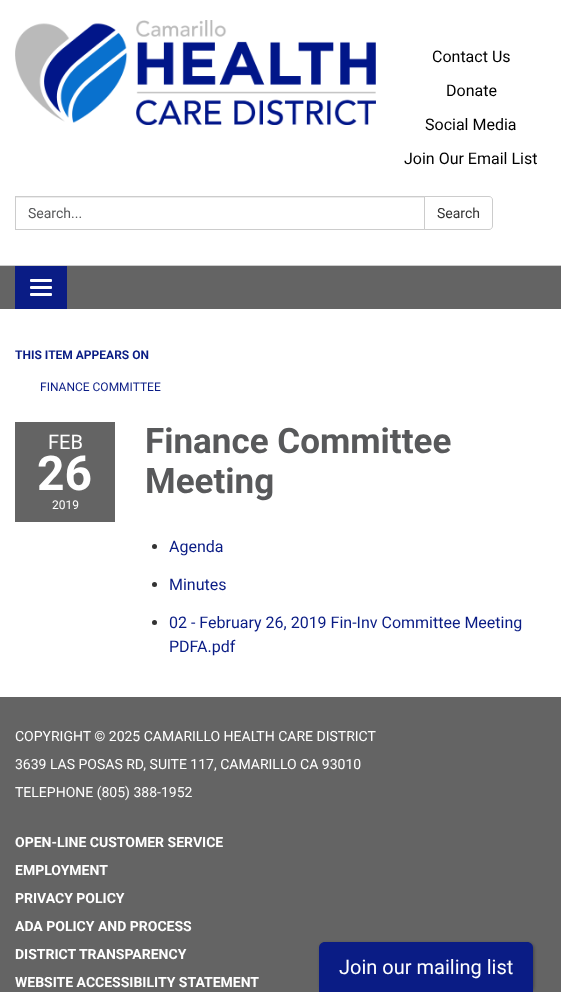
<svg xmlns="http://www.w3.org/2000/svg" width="561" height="992">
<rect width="100%" height="100%" fill="#646464"/>
<rect width="561" height="265" fill="#fff"/>
<image x="15" y="20" width="361" height="105" href="media/1.png"/>
<text x="432" y="62" style="font-family:Roboto;font-size:16px;fill:#000">Contact Us</text>
<text x="446" y="96" style="font-family:Roboto;font-size:16px;fill:#000">Donate</text>
<text x="425" y="130" style="font-family:Roboto;font-size:16px;fill:#000">Social Media</text>
<text x="404" y="164" style="font-family:Roboto;font-size:16px;fill:#000">Join Our Email List</text>
<rect x="16" y="197" width="408" height="1" fill="#ececec"/>
<rect x="15.5" y="196.5" width="409" height="33" fill="none" stroke="#ccc"/>
<text x="28" y="218" style="font-family:Roboto;font-size:14px;fill:#58595b">Search...</text>
<path d="M424.5 196.5h64.5c2 0 3.5 1.5 3.5 3.5v26c0 2-1.5 3.5-3.5 3.5h-64.5z" fill="#fff" stroke="#ccc"/>
<text x="437" y="218" style="font-family:Roboto;font-size:14px;fill:#333">Search</text>
<rect y="265" width="561" height="1" fill="#ccc"/>
<rect x="15" y="266" width="52" height="43" fill="#0a1c85"/>
<rect x="30" y="279" width="22" height="3" rx="1" fill="#fff"/>
<rect x="30" y="286" width="22" height="3" rx="1" fill="#fff"/>
<rect x="30" y="293" width="22" height="3" rx="1" fill="#fff"/>
<rect y="309" width="561" height="388" fill="#fff"/>
<text x="15" y="359" style="font-family:Roboto;font-size:12px;font-weight:bold;fill:#0a1c85">THIS ITEM APPEARS ON</text>
<text x="40" y="391" style="font-family:Roboto;font-size:12px;fill:#0a1c85">FINANCE COMMITTEE</text>
<rect x="15" y="422" width="100" height="100" fill="#646464"/>
<text x="48" y="449" style="font-family:Roboto;font-size:20px;fill:#fff">FEB</text>
<text x="37" y="490" style="font-family:Roboto;font-size:48px;font-weight:bold;fill:#fff">26</text>
<text x="52" y="509" style="font-family:Roboto;font-size:12px;fill:#fff">2019</text>
<text x="145" y="453" style="font-family:Roboto;font-size:35px;font-weight:bold;fill:#58595b">Finance Committee</text>
<text x="145" y="493" style="font-family:Roboto;font-size:35px;font-weight:bold;fill:#58595b">Meeting</text>
<circle cx="154.5" cy="546.5" r="2.5" fill="#333"/>
<text x="169" y="552" style="font-family:Roboto;font-size:16px;fill:#0a1c85">Agenda</text>
<circle cx="154.5" cy="584.5" r="2.5" fill="#333"/>
<text x="169" y="590" style="font-family:Roboto;font-size:16px;fill:#0a1c85">Minutes</text>
<circle cx="154.5" cy="622.5" r="2.5" fill="#333"/>
<text x="169" y="628" style="font-family:Roboto;font-size:16px;fill:#0a1c85">02 - February 26, 2019 Fin-Inv Committee Meeting</text>
<text x="169" y="652" style="font-family:Roboto;font-size:16px;fill:#0a1c85">PDFA.pdf</text>
<text x="15" y="741" style="font-family:Roboto;font-size:14px;fill:#fff">COPYRIGHT © 2025 CAMARILLO HEALTH CARE DISTRICT</text>
<text x="15" y="769" style="font-family:Roboto;font-size:14px;fill:#fff">3639 LAS POSAS RD, SUITE 117, CAMARILLO CA 93010</text>
<text x="15" y="797" style="font-family:Roboto;font-size:14px;fill:#fff">TELEPHONE (805) 388-1952</text>
<text x="15" y="847" style="font-family:Roboto;font-size:14px;font-weight:bold;fill:#fff">OPEN-LINE CUSTOMER SERVICE</text>
<text x="15" y="875" style="font-family:Roboto;font-size:14px;font-weight:bold;fill:#fff">EMPLOYMENT</text>
<text x="15" y="903" style="font-family:Roboto;font-size:14px;font-weight:bold;fill:#fff">PRIVACY POLICY</text>
<text x="15" y="931" style="font-family:Roboto;font-size:14px;font-weight:bold;fill:#fff">ADA POLICY AND PROCESS</text>
<text x="15" y="959" style="font-family:Roboto;font-size:14px;font-weight:bold;fill:#fff">DISTRICT TRANSPARENCY</text>
<text x="15" y="987" style="font-family:Roboto;font-size:14px;font-weight:bold;fill:#fff">WEBSITE ACCESSIBILITY STATEMENT</text>
<rect x="320" y="943" width="214" height="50" rx="6" fill="#0000004d" filter="blur(1.5px)"/>
<path d="M325 942h202c3.5 0 6 2.5 6 6v44h-214v-44c0-3.5 2.5-6 6-6z" fill="#0a1c85"/>
<text x="339" y="974" style="font-family:Roboto;font-size:20px;fill:#fff">Join our mailing list</text>
</svg>
